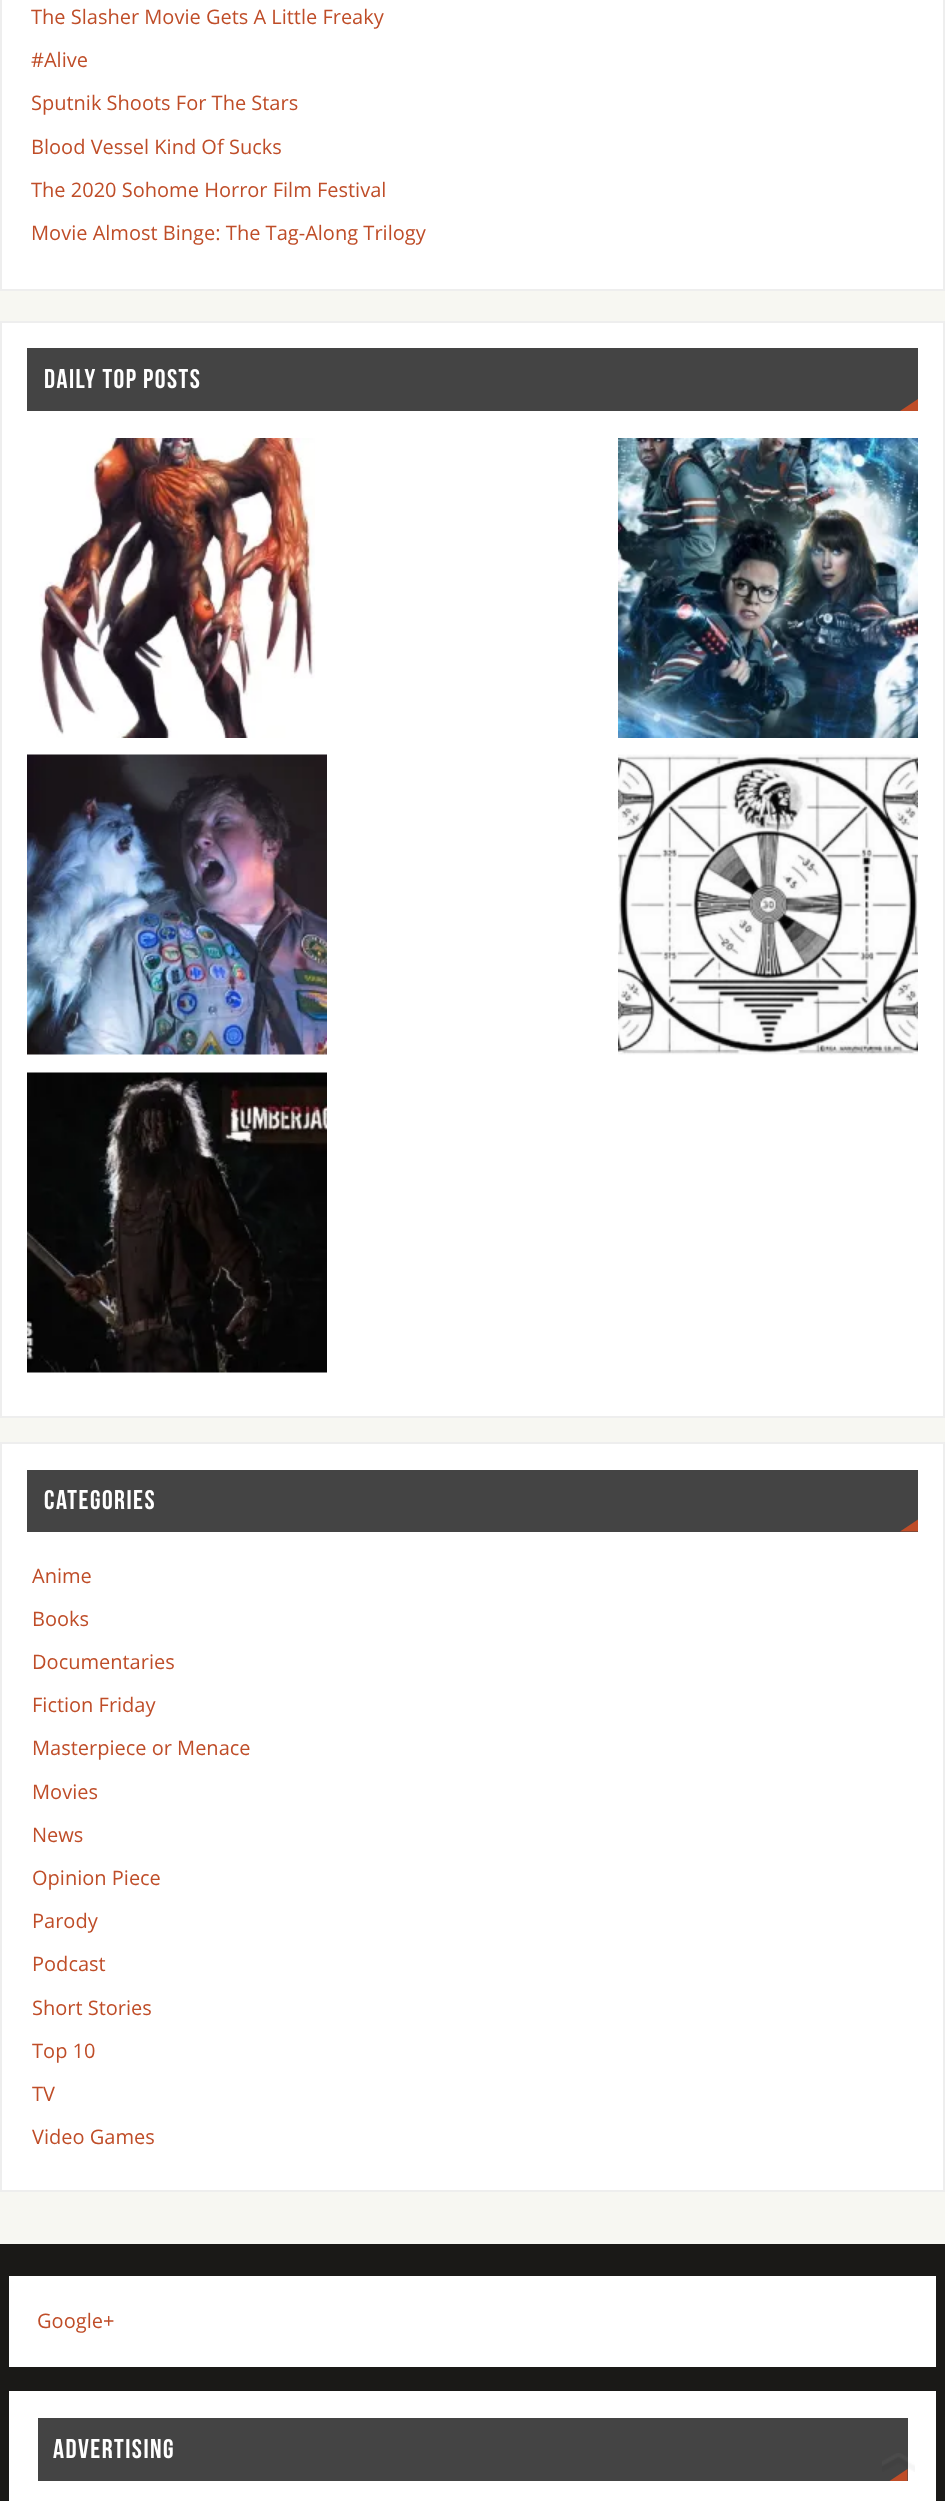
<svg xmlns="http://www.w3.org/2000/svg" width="945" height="2501">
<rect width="100%" height="100%" fill="#f7f7f2"/>
<rect x="1" y="-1" width="943" height="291" fill="#fff" stroke="#eee" stroke-width="2"/>
<text x="31" y="24" style="font-family:Open Sans;font-size:20px;fill:#bf4d28">The Slasher Movie Gets A Little Freaky</text>
<text x="31" y="67" style="font-family:Open Sans;font-size:20px;fill:#bf4d28">#Alive</text>
<text x="31" y="110" style="font-family:Open Sans;font-size:20px;fill:#bf4d28">Sputnik Shoots For The Stars</text>
<text x="31" y="154" style="font-family:Open Sans;font-size:20px;fill:#bf4d28">Blood Vessel Kind Of Sucks</text>
<text x="31" y="197" style="font-family:Open Sans;font-size:20px;fill:#bf4d28">The 2020 Sohome Horror Film Festival</text>
<text x="31" y="240" style="font-family:Open Sans;font-size:20px;fill:#bf4d28">Movie Almost Binge: The Tag-Along Trilogy</text>
<rect x="1" y="322" width="943" height="1095" fill="#fff" stroke="#eee" stroke-width="2"/>
<rect x="27" y="348" width="891" height="63" fill="#444"/>
<text x="44" y="388" style="font-family:Bebas Neue;font-size:27px;letter-spacing:1.5px;fill:#fff">DAILY TOP POSTS</text>
<path d="M918 411h-18l18-12z" fill="#bf4d28"/>
<image x="39" y="438" width="276" height="300" href="media/1.png"/>
<image x="618" y="438" width="300" height="300" href="media/2.png"/>
<image x="27" y="754" width="300" height="301" href="media/3.png"/>
<image x="618" y="754" width="300" height="301" href="media/4.png"/>
<image x="27" y="1072" width="300" height="301" href="media/5.png"/>
<rect x="1" y="1443" width="943" height="748" fill="#fff" stroke="#eee" stroke-width="2"/>
<rect x="27" y="1470" width="891" height="62" fill="#444"/>
<text x="44" y="1509" style="font-family:Bebas Neue;font-size:27px;letter-spacing:1.5px;fill:#fff">CATEGORIES</text>
<path d="M918 1531.5h-18l18-12z" fill="#bf4d28"/>
<text x="32" y="1583" style="font-family:Open Sans;font-size:20px;fill:#bf4d28">Anime</text>
<text x="32" y="1626" style="font-family:Open Sans;font-size:20px;fill:#bf4d28">Books</text>
<text x="32" y="1669" style="font-family:Open Sans;font-size:20px;fill:#bf4d28">Documentaries</text>
<text x="32" y="1712" style="font-family:Open Sans;font-size:20px;fill:#bf4d28">Fiction Friday</text>
<text x="32" y="1755" style="font-family:Open Sans;font-size:20px;fill:#bf4d28">Masterpiece or Menace</text>
<text x="32" y="1799" style="font-family:Open Sans;font-size:20px;fill:#bf4d28">Movies</text>
<text x="32" y="1842" style="font-family:Open Sans;font-size:20px;fill:#bf4d28">News</text>
<text x="32" y="1885" style="font-family:Open Sans;font-size:20px;fill:#bf4d28">Opinion Piece</text>
<text x="32" y="1928" style="font-family:Open Sans;font-size:20px;fill:#bf4d28">Parody</text>
<text x="32" y="1971" style="font-family:Open Sans;font-size:20px;fill:#bf4d28">Podcast</text>
<text x="32" y="2015" style="font-family:Open Sans;font-size:20px;fill:#bf4d28">Short Stories</text>
<text x="32" y="2058" style="font-family:Open Sans;font-size:20px;fill:#bf4d28">Top 10</text>
<text x="32" y="2101" style="font-family:Open Sans;font-size:20px;fill:#bf4d28">TV</text>
<text x="32" y="2144" style="font-family:Open Sans;font-size:20px;fill:#bf4d28">Video Games</text>
<rect y="2244" width="945" height="257" fill="#1a1917"/>
<rect x="9" y="2276" width="927" height="91" fill="#fff"/>
<text x="37" y="2328" style="font-family:Open Sans;font-size:20px;fill:#bf4d28">Google+</text>
<rect x="9" y="2391" width="927" height="110" fill="#fff"/>
<rect x="38" y="2418" width="870" height="63" fill="#444"/>
<text x="53" y="2458" style="font-family:Bebas Neue;font-size:27px;letter-spacing:1.5px;fill:#fff">ADVERTISING</text>
<path d="M907.5 2481h-18l18-12z" fill="#bf4d28"/>
<image x="882" y="2453" width="33" height="19" href="media/6.png"/>
</svg>
